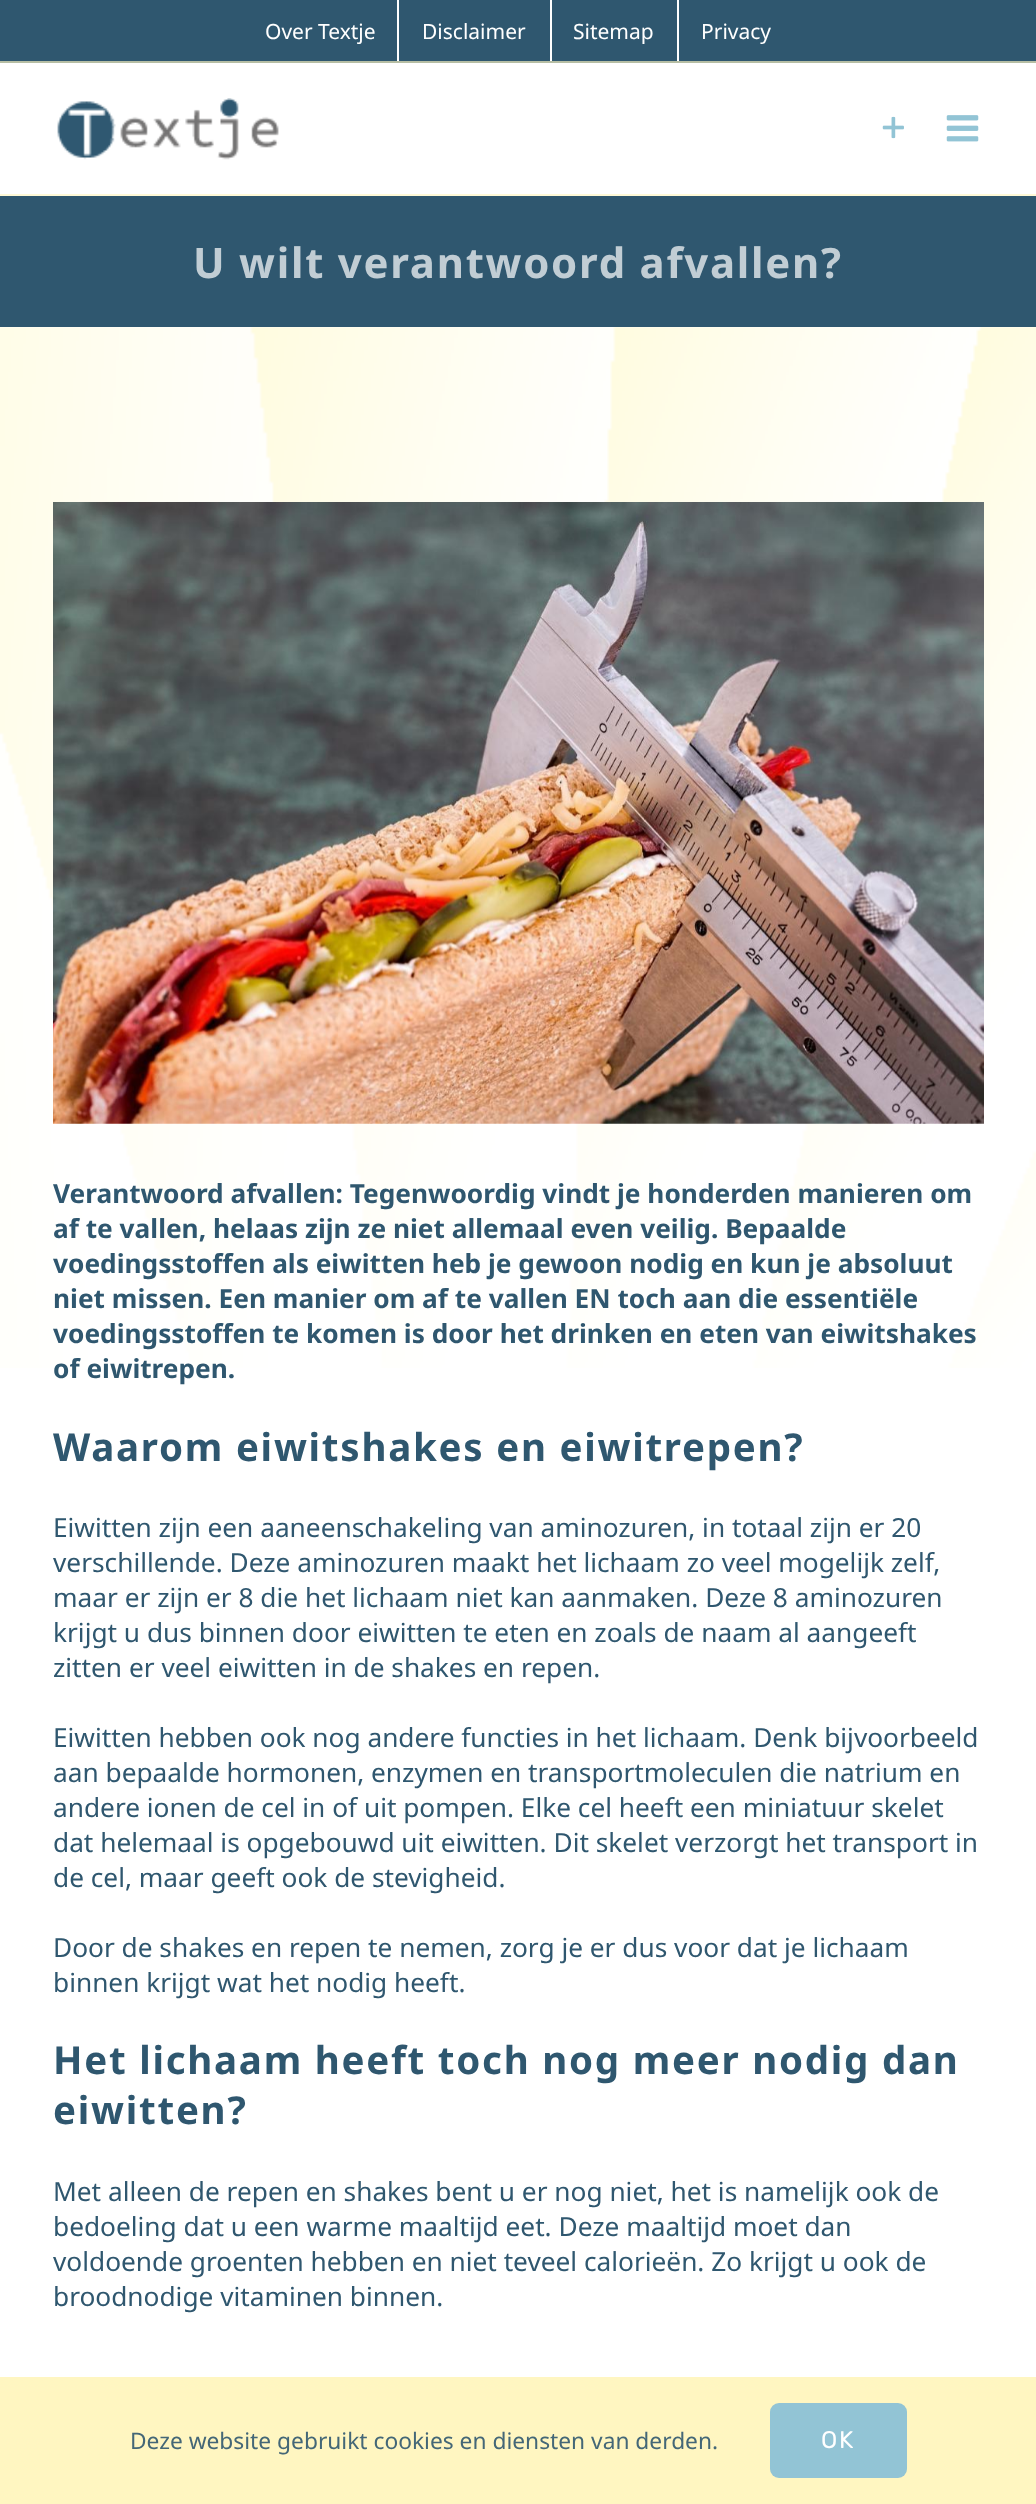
<svg xmlns="http://www.w3.org/2000/svg" width="1036" height="2504">
<rect width="100%" height="100%" fill="#fff"/>
<rect width="1036" height="61" fill="#2f576f"/>
<rect y="61" width="1036" height="2" fill="#b6bea4"/>
<text x="265" y="39" style="font-family:Noto Sans;font-size:21px;fill:#fff">Over Textje</text>
<rect x="397" width="2" height="61" fill="#fff"/>
<text x="422" y="39" style="font-family:Noto Sans;font-size:21px;fill:#fff">Disclaimer</text>
<rect x="550" width="2" height="61" fill="#fff"/>
<text x="573" y="39" style="font-family:Noto Sans;font-size:21px;fill:#fff">Sitemap</text>
<rect x="677" width="2" height="61" fill="#fff"/>
<text x="701" y="39" style="font-family:Noto Sans;font-size:21px;fill:#fff">Privacy</text>
<rect y="194" width="1036" height="2" fill="#fff9d7"/>
<image x="57" y="98" width="222" height="62" href="media/1.png"/>
<image x="882" y="116" width="22" height="23" href="media/2.png"/>
<image x="946" y="115" width="33" height="27" href="media/3.png"/>
<rect y="196" width="1036" height="131" fill="#2f576f"/>
<text x="193" y="278" style="font-family:Noto Sans;font-size:41.9px;font-weight:bold;letter-spacing:1.75px;fill:#c1cdd4">U wilt verantwoord afvallen?</text>
<image x="0" y="327" width="1036" height="1041" href="media/4.png"/>
<image x="53" y="502" width="931" height="622" href="media/5.png"/>
<text x="53" y="1203" style="font-family:Noto Sans;font-size:26.25px;font-weight:bold;fill:#2f576f">Verantwoord afvallen: Tegenwoordig vindt je honderden manieren om</text>
<text x="53" y="1238" style="font-family:Noto Sans;font-size:26.25px;font-weight:bold;fill:#2f576f">af te vallen, helaas zijn ze niet allemaal even veilig. Bepaalde</text>
<text x="53" y="1273" style="font-family:Noto Sans;font-size:26.25px;font-weight:bold;fill:#2f576f">voedingsstoffen als eiwitten heb je gewoon nodig en kun je absoluut</text>
<text x="53" y="1308" style="font-family:Noto Sans;font-size:26.25px;font-weight:bold;fill:#2f576f">niet missen. Een manier om af te vallen EN toch aan die essentiële</text>
<text x="53" y="1343" style="font-family:Noto Sans;font-size:26.25px;font-weight:bold;fill:#2f576f">voedingsstoffen te komen is door het drinken en eten van eiwitshakes</text>
<text x="53" y="1378" style="font-family:Noto Sans;font-size:26.25px;font-weight:bold;fill:#2f576f">of eiwitrepen.</text>
<text x="53" y="1461" style="font-family:Noto Sans;font-size:38.5px;font-weight:bold;letter-spacing:1.75px;fill:#2f576f">Waarom eiwitshakes en eiwitrepen?</text>
<text x="53" y="1537" style="font-family:Noto Sans;font-size:26.25px;fill:#2f576f">Eiwitten zijn een aaneenschakeling van aminozuren, in totaal zijn er 20</text>
<text x="53" y="1572" style="font-family:Noto Sans;font-size:26.25px;fill:#2f576f">verschillende. Deze aminozuren maakt het lichaam zo veel mogelijk zelf,</text>
<text x="53" y="1607" style="font-family:Noto Sans;font-size:26.25px;fill:#2f576f">maar er zijn er 8 die het lichaam niet kan aanmaken. Deze 8 aminozuren</text>
<text x="53" y="1642" style="font-family:Noto Sans;font-size:26.25px;fill:#2f576f">krijgt u dus binnen door eiwitten te eten en zoals de naam al aangeeft</text>
<text x="53" y="1677" style="font-family:Noto Sans;font-size:26.25px;fill:#2f576f">zitten er veel eiwitten in de shakes en repen.</text>
<text x="53" y="1747" style="font-family:Noto Sans;font-size:26.25px;fill:#2f576f">Eiwitten hebben ook nog andere functies in het lichaam. Denk bijvoorbeeld</text>
<text x="53" y="1782" style="font-family:Noto Sans;font-size:26.25px;fill:#2f576f">aan bepaalde hormonen, enzymen en transportmoleculen die natrium en</text>
<text x="53" y="1817" style="font-family:Noto Sans;font-size:26.25px;fill:#2f576f">andere ionen de cel in of uit pompen. Elke cel heeft een miniatuur skelet</text>
<text x="53" y="1852" style="font-family:Noto Sans;font-size:26.25px;fill:#2f576f">dat helemaal is opgebouwd uit eiwitten. Dit skelet verzorgt het transport in</text>
<text x="53" y="1887" style="font-family:Noto Sans;font-size:26.25px;fill:#2f576f">de cel, maar geeft ook de stevigheid.</text>
<text x="53" y="1957" style="font-family:Noto Sans;font-size:26.25px;fill:#2f576f">Door de shakes en repen te nemen, zorg je er dus voor dat je lichaam</text>
<text x="53" y="1992" style="font-family:Noto Sans;font-size:26.25px;fill:#2f576f">binnen krijgt wat het nodig heeft.</text>
<text x="53" y="2074" style="font-family:Noto Sans;font-size:38.5px;font-weight:bold;letter-spacing:1.75px;fill:#2f576f">Het lichaam heeft toch nog meer nodig dan</text>
<text x="53" y="2124" style="font-family:Noto Sans;font-size:38.5px;font-weight:bold;letter-spacing:1.75px;fill:#2f576f">eiwitten?</text>
<text x="53" y="2201" style="font-family:Noto Sans;font-size:26.25px;fill:#2f576f">Met alleen de repen en shakes bent u er nog niet, het is namelijk ook de</text>
<text x="53" y="2236" style="font-family:Noto Sans;font-size:26.25px;fill:#2f576f">bedoeling dat u een warme maaltijd eet. Deze maaltijd moet dan</text>
<text x="53" y="2271" style="font-family:Noto Sans;font-size:26.25px;fill:#2f576f">voldoende groenten hebben en niet teveel calorieën. Zo krijgt u ook de</text>
<text x="53" y="2306" style="font-family:Noto Sans;font-size:26.25px;fill:#2f576f">broodnodige vitaminen binnen.</text>
<rect y="2377" width="1036" height="127" fill="#fff6c1"/>
<text x="130" y="2449" style="font-family:Noto Sans;font-size:22.75px;fill:#446777">Deze website gebruikt cookies en diensten van derden.</text>
<rect x="770" y="2403" width="137" height="75" rx="9" fill="#92c4d5"/>
<text x="821" y="2448" style="font-family:Rubik;font-size:24px;letter-spacing:1.75px;fill:#fff">OK</text>
</svg>
